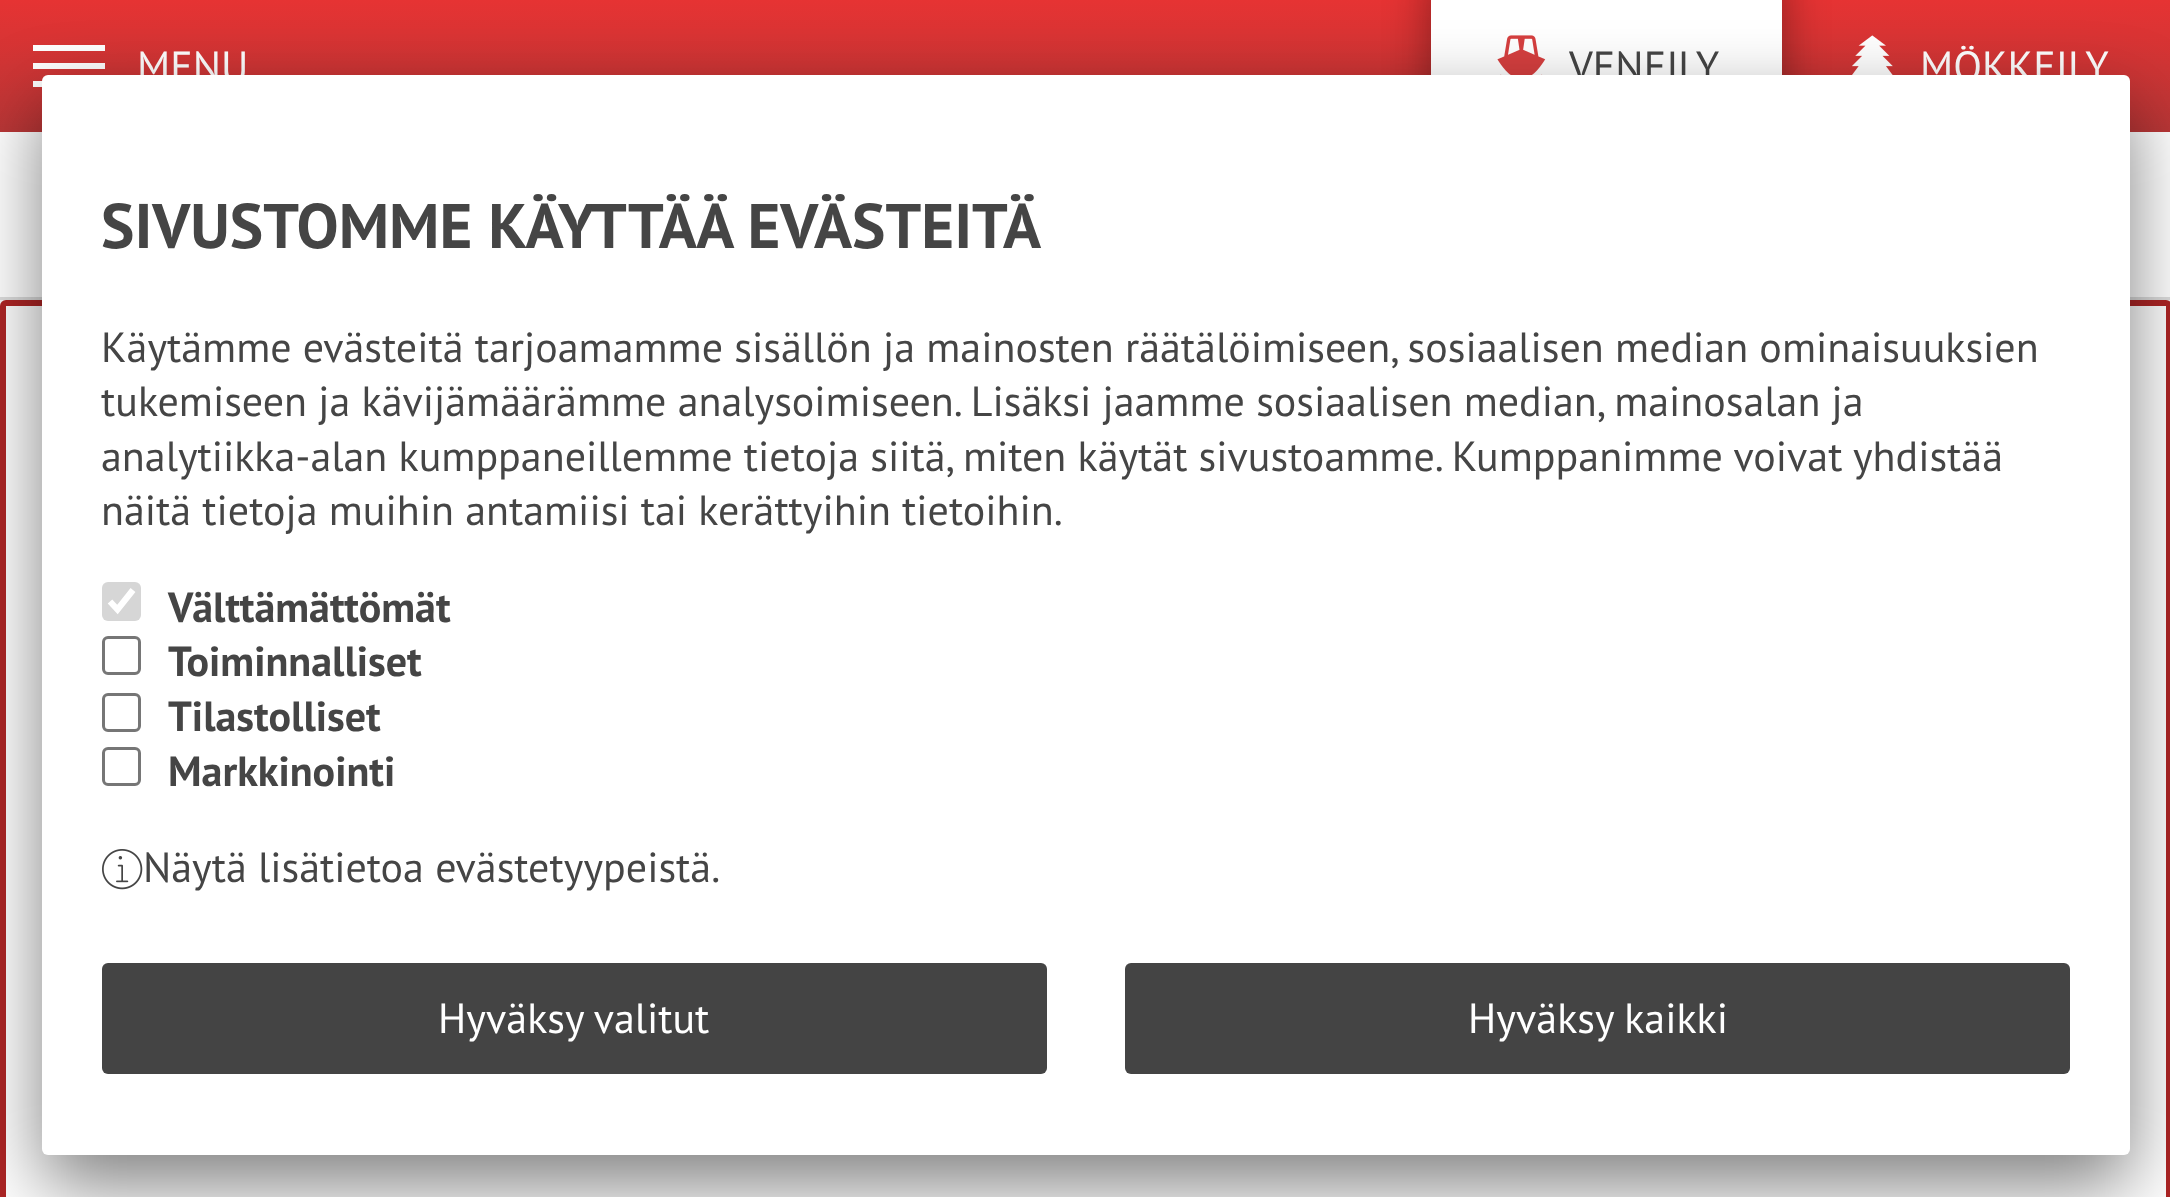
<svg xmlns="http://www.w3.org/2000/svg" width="2170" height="1197">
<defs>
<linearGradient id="g1" gradientUnits="userSpaceOnUse" x1="1086" y1="0" x2="1086" y2="132"><stop offset="0" stop-color="#e63333"/><stop offset="1" stop-color="#ba3737"/></linearGradient>
</defs>
<rect width="100%" height="100%" fill="#f9f9f9"/>
<rect width="2170" height="132" fill="url(#g1)"/>
<rect x="33" y="45" width="72" height="6" fill="#fff"/>
<rect x="33" y="63" width="72" height="6" fill="#fff"/>
<rect x="33" y="81" width="9" height="6" fill="#fff"/>
<text x="137" y="81" style="font-family:PT Sans;font-size:42px;fill:#fff">MENU</text>
<rect y="132" width="2170" height="165" fill="#fff"/>
<rect x="1431" y="-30" width="351" height="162" rx="6" fill="#00000066" filter="blur(22.5px)"/>
<rect x="1431" width="351" height="75" fill="#fff"/>
<image x="1497" y="35" width="49" height="40" href="media/1.png"/>
<text x="1569" y="81" style="font-family:PT Sans;font-size:42px;fill:#454545">VENEILY</text>
<image x="1852" y="35" width="41" height="40" href="media/2.png"/>
<text x="1920" y="81" style="font-family:PT Sans;font-size:42px;fill:#fff">MÖKKEILY</text>
<rect y="297" width="2170" height="3" fill="#ddd"/>
<rect x="3" y="303" width="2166" height="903" rx="3" fill="#fff" stroke="#ae2525" stroke-width="6"/>
<rect x="42" y="105" width="2088" height="1080" rx="6" fill="#00000080" filter="blur(37.5px)"/>
<rect x="42" y="75" width="2088" height="1080" rx="6" fill="#fff"/>
<text x="101" y="248" style="font-family:PT Sans;font-size:63px;font-weight:bold;fill:#454545">SIVUSTOMME KÄYTTÄÄ EVÄSTEITÄ</text>
<text x="101" y="362" style="font-family:PT Sans;font-size:42px;fill:#454545">Käytämme evästeitä tarjoamamme sisällön ja mainosten räätälöimiseen, sosiaalisen median ominaisuuksien</text>
<text x="101" y="416" style="font-family:PT Sans;font-size:42px;fill:#454545">tukemiseen ja kävijämäärämme analysoimiseen. Lisäksi jaamme sosiaalisen median, mainosalan ja</text>
<text x="101" y="471" style="font-family:PT Sans;font-size:42px;fill:#454545">analytiikka-alan kumppaneillemme tietoja siitä, miten käytät sivustoamme. Kumppanimme voivat yhdistää</text>
<text x="101" y="525" style="font-family:PT Sans;font-size:42px;fill:#454545">näitä tietoja muihin antamiisi tai kerättyihin tietoihin.</text>
<rect x="102" y="582" width="39" height="39" rx="6" fill="#d6d6d6"/>
<path d="M110 601.5l7.5 8l15.5-19.5" fill="none" stroke="#fff" stroke-width="6.2"/>
<text x="168" y="622" style="font-family:PT Sans;font-size:42px;font-weight:bold;fill:#454545">Välttämättömät</text>
<rect x="103.5" y="637.5" width="36" height="36" rx="4.5" fill="none" stroke="#767676" stroke-width="3"/>
<text x="168" y="676" style="font-family:PT Sans;font-size:42px;font-weight:bold;fill:#454545">Toiminnalliset</text>
<rect x="103.5" y="694.5" width="36" height="36" rx="4.5" fill="none" stroke="#767676" stroke-width="3"/>
<text x="168" y="731" style="font-family:PT Sans;font-size:42px;font-weight:bold;fill:#454545">Tilastolliset</text>
<rect x="103.5" y="748.5" width="36" height="36" rx="4.5" fill="none" stroke="#767676" stroke-width="3"/>
<text x="168" y="786" style="font-family:PT Sans;font-size:42px;font-weight:bold;fill:#454545">Markkinointi</text>
<image x="102" y="849" width="41" height="41" href="media/3.png"/>
<text x="143" y="882" style="font-family:PT Sans;font-size:42px;fill:#454545">Näytä lisätietoa evästetyypeistä.</text>
<rect x="102" y="963" width="945" height="111" rx="6" fill="#444"/>
<text x="438" y="1033" style="font-family:PT Sans;font-size:42px;fill:#fff">Hyväksy valitut</text>
<rect x="1125" y="963" width="945" height="111" rx="6" fill="#444"/>
<text x="1468" y="1033" style="font-family:PT Sans;font-size:42px;fill:#fff">Hyväksy kaikki</text>
</svg>
